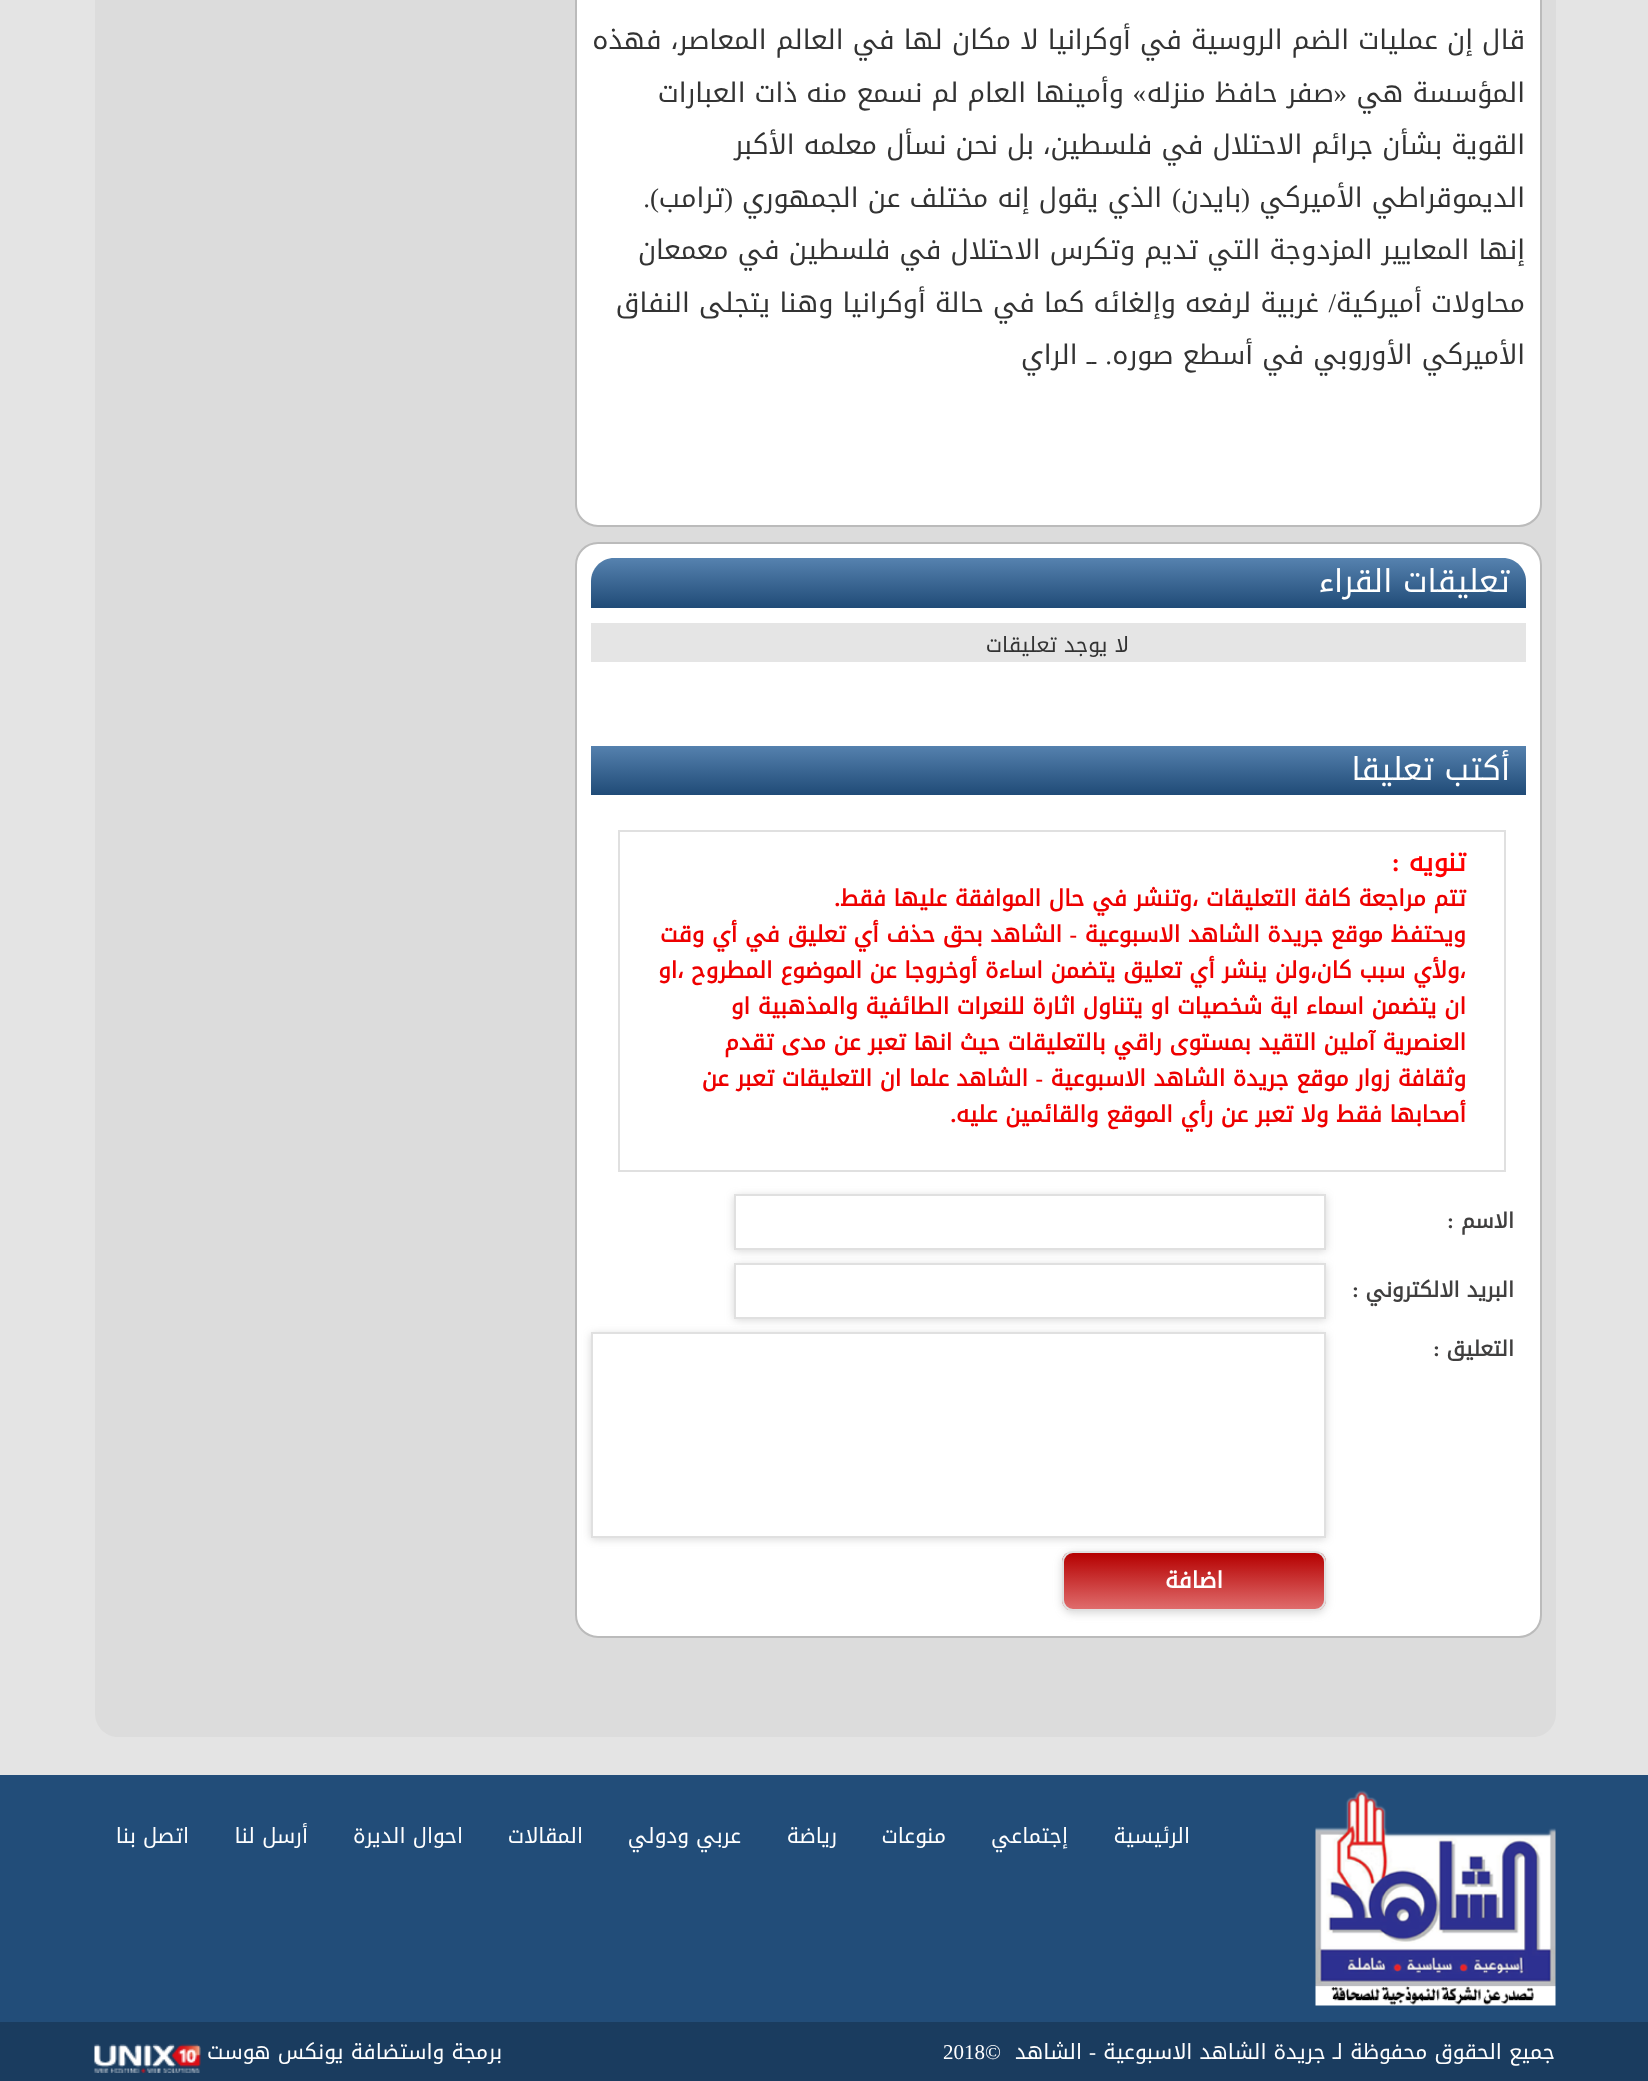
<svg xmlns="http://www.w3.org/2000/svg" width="1648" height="2081">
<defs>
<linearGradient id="g1" gradientUnits="userSpaceOnUse" x1="1058" y1="558" x2="1058" y2="608"><stop offset="0" stop-color="#5682af"/><stop offset="1" stop-color="#204b77"/></linearGradient>
<linearGradient id="g2" gradientUnits="userSpaceOnUse" x1="1058" y1="745" x2="1058" y2="795"><stop offset="0" stop-color="#5682af"/><stop offset="1" stop-color="#204b77"/></linearGradient>
<clipPath id="clip1"><rect x="1062" y="1551" width="264" height="60" rx="11"/></clipPath>
<linearGradient id="g3" gradientUnits="userSpaceOnUse" x1="1194" y1="1553" x2="1194" y2="1610"><stop offset="0" stop-color="#b50000"/><stop offset="1" stop-color="#e06e6e"/></linearGradient>
</defs>
<rect width="100%" height="100%" fill="#e4e4e4"/>
<path d="M95-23h1461v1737c0 12.5-10.5 23-23 23h-1415c-12.5 0-23-10.5-23-23z" fill="#dcdcdc"/>
<rect x="576" y="-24" width="965" height="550" rx="22" fill="#fff" stroke="#bbb" stroke-width="2"/>
<text x="1525" y="49" style="font-family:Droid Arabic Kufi;font-size:27px;direction:rtl;fill:#333">قال إن عمليات الضم الروسية في أوكرانيا لا مكان لها في العالم المعاصر، فهذه</text>
<text x="1525" y="102" style="font-family:Droid Arabic Kufi;font-size:27px;direction:rtl;fill:#333">المؤسسة هي</text>
<text x="1347" y="102" style="font-family:Liberation Serif;font-size:27px;direction:rtl;fill:#333">«</text>
<text x="1334" y="102" style="font-family:Droid Arabic Kufi;font-size:27px;direction:rtl;fill:#333">صفر حافظ منزله</text>
<text x="1146" y="102" style="font-family:Liberation Serif;font-size:27px;direction:rtl;fill:#333">»</text>
<text x="1124" y="102" style="font-family:Droid Arabic Kufi;font-size:27px;direction:rtl;fill:#333">وأمينها العام لم نسمع منه ذات العبارات</text>
<text x="1525" y="154" style="font-family:Droid Arabic Kufi;font-size:27px;direction:rtl;fill:#333">القوية بشأن جرائم الاحتلال في فلسطين، بل نحن نسأل معلمه الأكبر</text>
<text x="1525" y="207" style="font-family:Droid Arabic Kufi;font-size:27px;direction:rtl;fill:#333">الديموقراطي الأميركي</text>
<text x="1250" y="207" style="font-family:Liberation Serif;font-size:27px;direction:rtl;fill:#333">(</text>
<text x="1241" y="207" style="font-family:Droid Arabic Kufi;font-size:27px;direction:rtl;fill:#333">بايدن</text>
<text x="1181" y="207" style="font-family:Liberation Serif;font-size:27px;direction:rtl;fill:#333">)</text>
<text x="1162" y="207" style="font-family:Droid Arabic Kufi;font-size:27px;direction:rtl;fill:#333">الذي يقول إنه مختلف عن الجمهوري</text>
<text x="733" y="207" style="font-family:Liberation Serif;font-size:27px;direction:rtl;fill:#333">(</text>
<text x="724" y="207" style="font-family:Droid Arabic Kufi;font-size:27px;direction:rtl;fill:#333">ترامب</text>
<text x="659" y="207" style="font-family:Liberation Serif;font-size:27px;direction:rtl;fill:#333">).</text>
<text x="1525" y="259" style="font-family:Droid Arabic Kufi;font-size:27px;direction:rtl;fill:#333">إنها المعايير المزدوجة التي تديم وتكرس الاحتلال في فلسطين في معمعان</text>
<text x="1525" y="312" style="font-family:Droid Arabic Kufi;font-size:27px;direction:rtl;fill:#333">محاولات أميركية</text>
<text x="1336" y="312" style="font-family:Liberation Serif;font-size:27px;direction:rtl;fill:#333">/</text>
<text x="1319" y="312" style="font-family:Droid Arabic Kufi;font-size:27px;direction:rtl;fill:#333">غربية لرفعه وإلغائه كما في حالة أوكرانيا وهنا يتجلى النفاق</text>
<text x="1525" y="364" style="font-family:Droid Arabic Kufi;font-size:27px;direction:rtl;fill:#333">الأميركي الأوروبي في أسطع صوره</text>
<text x="1112" y="364" style="font-family:Liberation Serif;font-size:27px;direction:rtl;fill:#333">.</text>
<text x="1096" y="364" style="font-family:Droid Arabic Kufi;font-size:27px;direction:rtl;fill:#333">ــ الراي</text>
<rect x="576" y="543" width="965" height="1094" rx="22" fill="#fff" stroke="#bbb" stroke-width="2"/>
<path d="M614 558h889c12.5 0 23 10.5 23 23v27h-935v-27c0-12.5 10.5-23 23-23z" fill="url(#g1)"/>
<text x="1510" y="592" style="font-family:Droid Arabic Kufi;font-size:31.5px;direction:rtl;fill:#fff">تعليقات القراء</text>
<rect x="591" y="623" width="935" height="39" fill="#e5e5e5"/>
<text x="1129" y="652" style="font-family:Droid Arabic Kufi;font-size:21px;direction:rtl;fill:#333">لا يوجد تعليقات</text>
<rect x="591" y="746" width="935" height="49" fill="url(#g2)"/>
<text x="1510" y="780" style="font-family:Droid Arabic Kufi;font-size:31.5px;direction:rtl;fill:#fff">أكتب تعليقا</text>
<rect x="619" y="831" width="886" height="340" fill="none" stroke="#e0e0e0" stroke-width="2"/>
<text x="1466" y="871" style="font-family:Droid Arabic Kufi;font-size:25.5px;font-weight:bold;direction:rtl;fill:#f00">تنويه</text>
<text x="1400" y="871" style="font-family:Liberation Serif;font-size:25.5px;font-weight:bold;direction:rtl;fill:#f00">:</text>
<text x="1466" y="906" style="font-family:Droid Arabic Kufi;font-size:22.5px;font-weight:bold;direction:rtl;fill:#e00">تتم مراجعة كافة التعليقات ،وتنشر في حال الموافقة عليها فقط</text>
<text x="840" y="906" style="font-family:Liberation Serif;font-size:22.5px;font-weight:bold;direction:rtl;fill:#e00">.</text>
<text x="1466" y="942" style="font-family:Droid Arabic Kufi;font-size:22.5px;font-weight:bold;direction:rtl;fill:#e00">ويحتفظ موقع جريدة الشاهد الاسبوعية</text>
<text x="1077" y="942" style="font-family:Liberation Serif;font-size:22.5px;font-weight:bold;direction:rtl;fill:#e00">-</text>
<text x="1062" y="942" style="font-family:Droid Arabic Kufi;font-size:22.5px;font-weight:bold;direction:rtl;fill:#e00">الشاهد بحق حذف أي تعليق في أي وقت</text>
<text x="1466" y="978" style="font-family:Droid Arabic Kufi;font-size:22.5px;font-weight:bold;direction:rtl;fill:#e00">،ولأي سبب كان،ولن ينشر أي تعليق يتضمن اساءة أوخروجا عن</text>
<text x="862" y="978" style="font-family:Droid Arabic Kufi;font-size:22.5px;font-weight:bold;direction:rtl;fill:#e00">الموضوع المطروح ،او</text>
<text x="1466" y="1014" style="font-family:Droid Arabic Kufi;font-size:22.5px;font-weight:bold;direction:rtl;fill:#e00">ان يتضمن اسماء اية شخصيات او يتناول اثارة للنعرات الطائفية والمذهبية او</text>
<text x="1466" y="1050" style="font-family:Droid Arabic Kufi;font-size:22.5px;font-weight:bold;direction:rtl;fill:#e00">العنصرية آملين</text>
<text x="1316" y="1050" style="font-family:Droid Arabic Kufi;font-size:22.5px;font-weight:bold;direction:rtl;fill:#e00">التقيد بمستوى راقي بالتعليقات حيث انها تعبر عن مدى تقدم</text>
<text x="1466" y="1086" style="font-family:Droid Arabic Kufi;font-size:22.5px;font-weight:bold;direction:rtl;fill:#e00">وثقافة زوار موقع جريدة الشاهد الاسبوعية</text>
<text x="1043" y="1086" style="font-family:Liberation Serif;font-size:22.5px;font-weight:bold;direction:rtl;fill:#e00">-</text>
<text x="1028" y="1086" style="font-family:Droid Arabic Kufi;font-size:22.5px;font-weight:bold;direction:rtl;fill:#e00">الشاهد</text>
<text x="949" y="1086" style="font-family:Droid Arabic Kufi;font-size:22.5px;font-weight:bold;direction:rtl;fill:#e00">علما ان التعليقات تعبر عن</text>
<text x="1466" y="1122" style="font-family:Droid Arabic Kufi;font-size:22.5px;font-weight:bold;direction:rtl;fill:#e00">أصحابها فقط ولا تعبر عن رأي الموقع والقائمين عليه</text>
<text x="956" y="1122" style="font-family:Liberation Serif;font-size:22.5px;font-weight:bold;direction:rtl;fill:#e00">.</text>
<text x="1514" y="1228" style="font-family:Droid Arabic Kufi;font-size:21px;font-weight:bold;direction:rtl;fill:#403f3f">الاسم</text>
<text x="1454" y="1228" style="font-family:Liberation Serif;font-size:21px;font-weight:bold;direction:rtl;fill:#403f3f">:</text>
<rect x="734" y="1196" width="592" height="55" fill="#7878784d" filter="blur(4px)"/>
<rect x="735" y="1195" width="590" height="54" fill="#fff" stroke="#e0e0e0" stroke-width="2"/>
<text x="1514" y="1297" style="font-family:Droid Arabic Kufi;font-size:21px;font-weight:bold;direction:rtl;fill:#403f3f">البريد الالكتروني</text>
<text x="1359" y="1297" style="font-family:Liberation Serif;font-size:21px;font-weight:bold;direction:rtl;fill:#403f3f">:</text>
<rect x="734" y="1265" width="592" height="55" fill="#7878784d" filter="blur(4px)"/>
<rect x="735" y="1264" width="590" height="54" fill="#fff" stroke="#e0e0e0" stroke-width="2"/>
<text x="1514" y="1356" style="font-family:Droid Arabic Kufi;font-size:21px;font-weight:bold;direction:rtl;fill:#403f3f">التعليق</text>
<text x="1440" y="1356" style="font-family:Liberation Serif;font-size:21px;font-weight:bold;direction:rtl;fill:#403f3f">:</text>
<rect x="1062" y="1553" width="264" height="60" rx="11" fill="#7878784d" filter="blur(4px)"/>
<g clip-path="url(#clip1)">
<rect x="1062" y="1553" width="264" height="57" fill="url(#g3)"/>
</g>
<rect x="1063" y="1552" width="262" height="58" rx="10" fill="none" stroke="#e0e0e0" stroke-width="2"/>
<rect x="591" y="1334" width="735" height="205" fill="#7878784d" filter="blur(4px)"/>
<rect x="592" y="1333" width="733" height="204" fill="#fff" stroke="#e0e0e0" stroke-width="2"/>
<text x="1223" y="1588" style="font-family:Droid Arabic Kufi;font-size:22.5px;font-weight:bold;direction:rtl;fill:#fff">اضافة</text>
<rect y="1775" width="1648" height="247" fill="#224d79"/>
<image x="1315" y="1790" width="241" height="216" href="media/1.png"/>
<text x="1190" y="1843" style="font-family:Droid Arabic Kufi;font-size:21px;direction:rtl;fill:#fff">الرئيسية</text>
<text x="1068" y="1843" style="font-family:Droid Arabic Kufi;font-size:21px;direction:rtl;fill:#fff">إجتماعي</text>
<text x="946" y="1843" style="font-family:Droid Arabic Kufi;font-size:21px;direction:rtl;fill:#fff">منوعات</text>
<text x="837" y="1843" style="font-family:Droid Arabic Kufi;font-size:21px;direction:rtl;fill:#fff">رياضة</text>
<text x="741" y="1843" style="font-family:Droid Arabic Kufi;font-size:21px;direction:rtl;fill:#fff">عربي ودولي</text>
<text x="583" y="1843" style="font-family:Droid Arabic Kufi;font-size:21px;direction:rtl;fill:#fff">المقالات</text>
<text x="463" y="1843" style="font-family:Droid Arabic Kufi;font-size:21px;direction:rtl;fill:#fff">احوال الديرة</text>
<text x="308" y="1843" style="font-family:Droid Arabic Kufi;font-size:21px;direction:rtl;fill:#fff">أرسل لنا</text>
<text x="189" y="1843" style="font-family:Droid Arabic Kufi;font-size:21px;direction:rtl;fill:#fff">اتصل بنا</text>
<rect y="2022" width="1648" height="59" fill="#1a3c5f"/>
<text x="1555" y="2059" style="font-family:Droid Arabic Kufi;font-size:21px;direction:rtl;fill:#fff">جميع الحقوق محفوظة لـ جريدة الشاهد الاسبوعية</text>
<text x="1096" y="2059" style="font-family:Liberation Serif;font-size:21px;direction:rtl;fill:#fff">-</text>
<text x="1082" y="2059" style="font-family:Droid Arabic Kufi;font-size:21px;direction:rtl;fill:#fff">الشاهد</text>
<text x="943" y="2059" style="font-family:Liberation Serif;font-size:21px;fill:#fff">2018©</text>
<text x="502" y="2059" style="font-family:Droid Arabic Kufi;font-size:21px;direction:rtl;fill:#fff">برمجة واستضافة يونكس هوست</text>
<image x="94" y="2044" width="107" height="29" href="media/2.png"/>
</svg>
